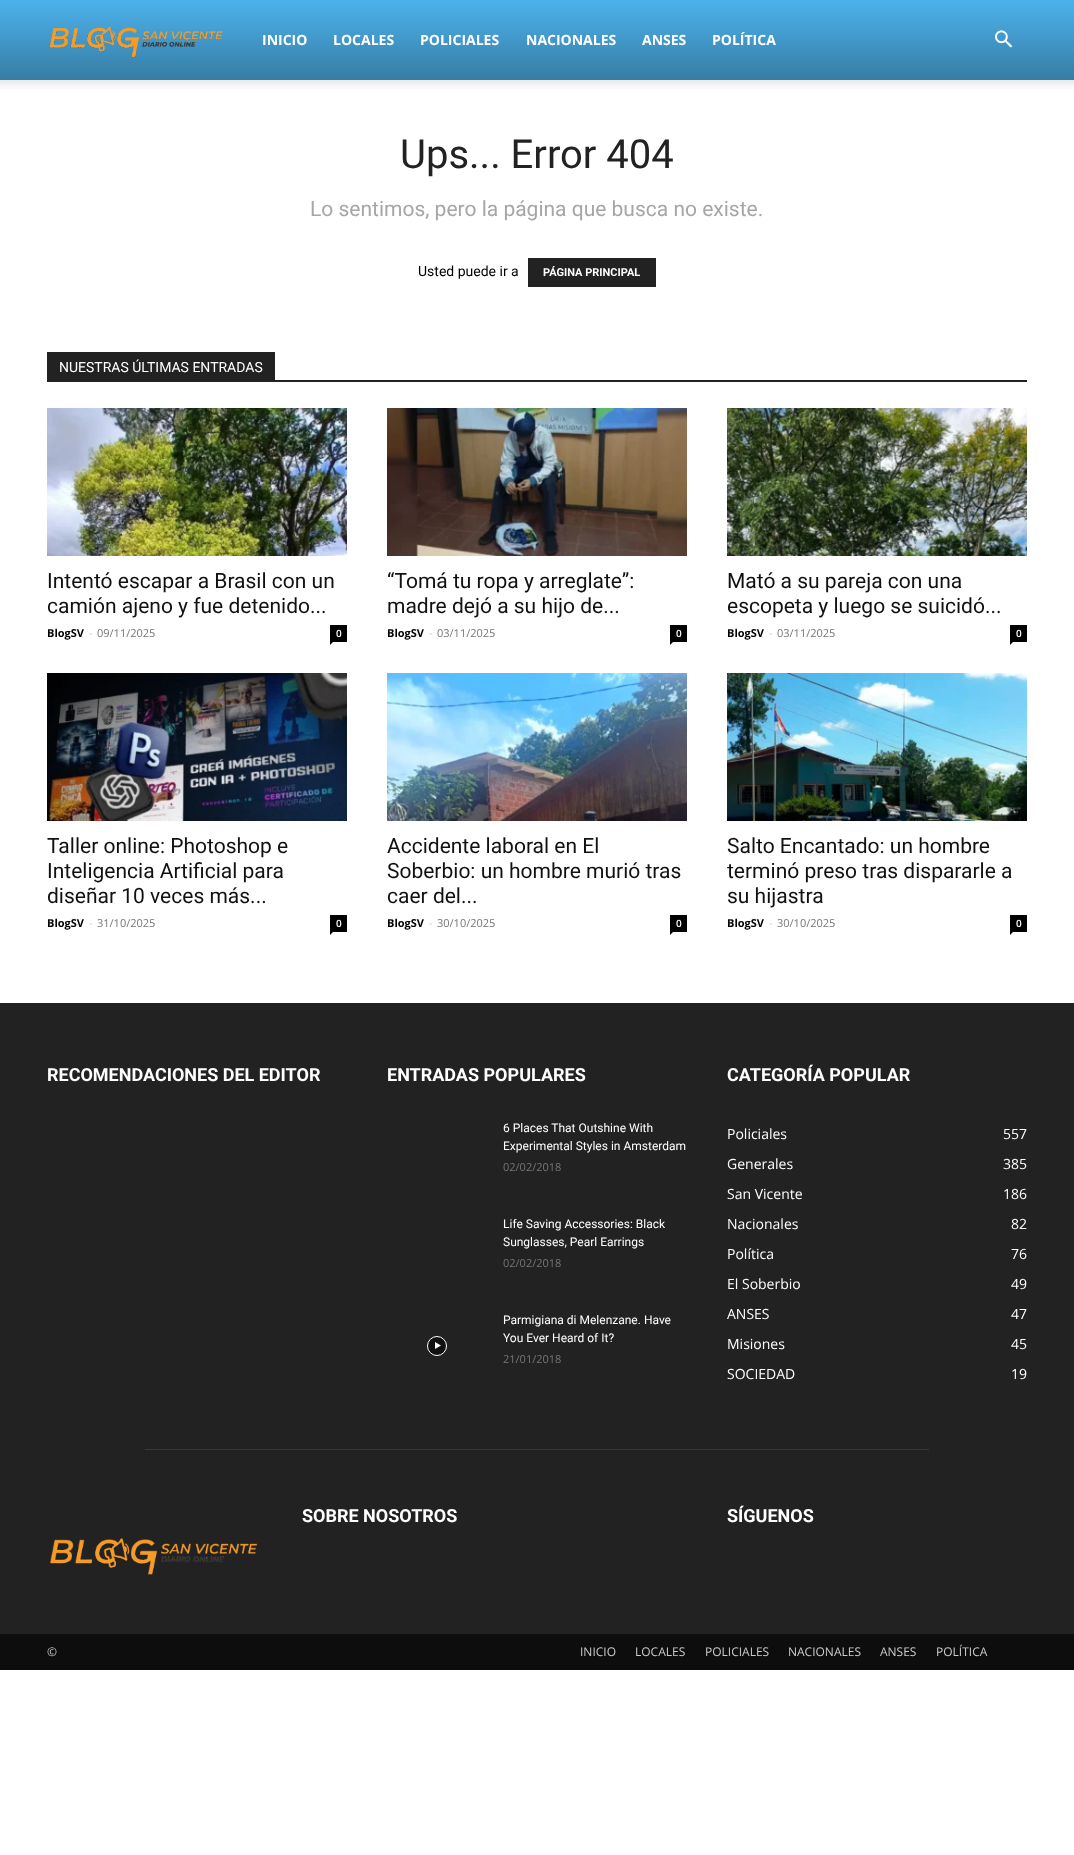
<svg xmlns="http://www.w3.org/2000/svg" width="1074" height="1855">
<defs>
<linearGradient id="g1" gradientUnits="userSpaceOnUse" x1="537" y1="0" x2="537" y2="80"><stop offset="0" stop-color="#4db2ec"/><stop offset="1" stop-color="#367da5"/></linearGradient>
</defs>
<rect width="100%" height="100%" fill="#fff"/>
<rect width="1074" height="80" fill="url(#g1)"/>
<image x="49" y="26" width="174" height="32" href="media/1.png"/>
<text x="262" y="45" style="font-family:Open Sans;font-size:14px;font-weight:bold;fill:#fff">INICIO</text>
<text x="333" y="45" style="font-family:Open Sans;font-size:14px;font-weight:bold;fill:#fff">LOCALES</text>
<text x="420" y="45" style="font-family:Open Sans;font-size:14px;font-weight:bold;fill:#fff">POLICIALES</text>
<text x="526" y="45" style="font-family:Open Sans;font-size:14px;font-weight:bold;fill:#fff">NACIONALES</text>
<text x="642" y="45" style="font-family:Open Sans;font-size:14px;font-weight:bold;fill:#fff">ANSES</text>
<text x="712" y="45" style="font-family:Open Sans;font-size:14px;font-weight:bold;fill:#fff">POLÍTICA</text>
<image x="995" y="30" width="17" height="18" href="media/2.png"/>
<image x="0" y="80" width="1074" height="9" href="media/3.png"/>
<text x="400" y="168" style="font-family:Roboto;font-size:40px;fill:#222">Ups... Error 404</text>
<text x="310" y="216" style="font-family:Roboto;font-size:21px;fill:#a6a6a6">Lo sentimos, pero la página que busca no existe.</text>
<text x="418" y="276" style="font-family:Roboto;font-size:14px;fill:#000">Usted puede ir a</text>
<rect x="528" y="258" width="128" height="29" fill="#222"/>
<text x="543" y="276" style="font-family:Roboto;font-size:11px;font-weight:bold;fill:#fff">PÁGINA PRINCIPAL</text>
<rect x="47" y="380" width="980" height="2" fill="#222"/>
<rect x="47" y="352" width="228" height="28" fill="#222"/>
<text x="59" y="372" style="font-family:Roboto;font-size:14px;fill:#fff">NUESTRAS ÚLTIMAS ENTRADAS</text>
<image x="47" y="408" width="300" height="148" href="media/4.png"/>
<text x="47" y="588" style="font-family:Roboto;font-size:21px;fill:#111">Intentó escapar a Brasil con un</text>
<text x="47" y="613" style="font-family:Roboto;font-size:21px;fill:#111">camión ajeno y fue detenido...</text>
<text x="47" y="637" style="font-family:Open Sans;font-size:11px;font-weight:bold;fill:#000">BlogSV</text>
<text x="89" y="637" style="font-family:Open Sans;font-size:11px;fill:#ccc">-</text>
<text x="97" y="637" style="font-family:Open Sans;font-size:11px;fill:#767676">09/11/2025</text>
<rect x="330" y="625" width="17" height="17" fill="#000"/>
<text x="336" y="637" style="font-family:Open Sans;font-size:10px;font-weight:600;fill:#fff">0</text>
<path d="M330 642h3l-3 3z" fill="#000"/>
<image x="387" y="408" width="300" height="148" href="media/5.png"/>
<text x="387" y="588" style="font-family:Roboto;font-size:21px;fill:#111">“Tomá tu ropa y arreglate”:</text>
<text x="387" y="613" style="font-family:Roboto;font-size:21px;fill:#111">madre dejó a su hijo de...</text>
<text x="387" y="637" style="font-family:Open Sans;font-size:11px;font-weight:bold;fill:#000">BlogSV</text>
<text x="429" y="637" style="font-family:Open Sans;font-size:11px;fill:#ccc">-</text>
<text x="437" y="637" style="font-family:Open Sans;font-size:11px;fill:#767676">03/11/2025</text>
<rect x="670" y="625" width="17" height="17" fill="#000"/>
<text x="676" y="637" style="font-family:Open Sans;font-size:10px;font-weight:600;fill:#fff">0</text>
<path d="M670 642h3l-3 3z" fill="#000"/>
<image x="727" y="408" width="300" height="148" href="media/6.png"/>
<text x="727" y="588" style="font-family:Roboto;font-size:21px;fill:#111">Mató a su pareja con una</text>
<text x="727" y="613" style="font-family:Roboto;font-size:21px;fill:#111">escopeta y luego se suicidó...</text>
<text x="727" y="637" style="font-family:Open Sans;font-size:11px;font-weight:bold;fill:#000">BlogSV</text>
<text x="769" y="637" style="font-family:Open Sans;font-size:11px;fill:#ccc">-</text>
<text x="777" y="637" style="font-family:Open Sans;font-size:11px;fill:#767676">03/11/2025</text>
<rect x="1010" y="625" width="17" height="17" fill="#000"/>
<text x="1016" y="637" style="font-family:Open Sans;font-size:10px;font-weight:600;fill:#fff">0</text>
<path d="M1010 642h3l-3 3z" fill="#000"/>
<image x="47" y="673" width="300" height="148" href="media/7.png"/>
<text x="47" y="853" style="font-family:Roboto;font-size:21px;fill:#111">Taller online: Photoshop e</text>
<text x="47" y="878" style="font-family:Roboto;font-size:21px;fill:#111">Inteligencia Artificial para</text>
<text x="47" y="903" style="font-family:Roboto;font-size:21px;fill:#111">diseñar 10 veces más...</text>
<text x="47" y="927" style="font-family:Open Sans;font-size:11px;font-weight:bold;fill:#000">BlogSV</text>
<text x="89" y="927" style="font-family:Open Sans;font-size:11px;fill:#ccc">-</text>
<text x="97" y="927" style="font-family:Open Sans;font-size:11px;fill:#767676">31/10/2025</text>
<rect x="330" y="915" width="17" height="17" fill="#000"/>
<text x="336" y="927" style="font-family:Open Sans;font-size:10px;font-weight:600;fill:#fff">0</text>
<path d="M330 932h3l-3 3z" fill="#000"/>
<image x="387" y="673" width="300" height="148" href="media/8.png"/>
<text x="387" y="853" style="font-family:Roboto;font-size:21px;fill:#111">Accidente laboral en El</text>
<text x="387" y="878" style="font-family:Roboto;font-size:21px;fill:#111">Soberbio: un hombre murió tras</text>
<text x="387" y="903" style="font-family:Roboto;font-size:21px;fill:#111">caer del...</text>
<text x="387" y="927" style="font-family:Open Sans;font-size:11px;font-weight:bold;fill:#000">BlogSV</text>
<text x="429" y="927" style="font-family:Open Sans;font-size:11px;fill:#ccc">-</text>
<text x="437" y="927" style="font-family:Open Sans;font-size:11px;fill:#767676">30/10/2025</text>
<rect x="670" y="915" width="17" height="17" fill="#000"/>
<text x="676" y="927" style="font-family:Open Sans;font-size:10px;font-weight:600;fill:#fff">0</text>
<path d="M670 932h3l-3 3z" fill="#000"/>
<image x="727" y="673" width="300" height="148" href="media/9.png"/>
<text x="727" y="853" style="font-family:Roboto;font-size:21px;fill:#111">Salto Encantado: un hombre</text>
<text x="727" y="878" style="font-family:Roboto;font-size:21px;fill:#111">terminó preso tras dispararle a</text>
<text x="727" y="903" style="font-family:Roboto;font-size:21px;fill:#111">su hijastra</text>
<text x="727" y="927" style="font-family:Open Sans;font-size:11px;font-weight:bold;fill:#000">BlogSV</text>
<text x="769" y="927" style="font-family:Open Sans;font-size:11px;fill:#ccc">-</text>
<text x="777" y="927" style="font-family:Open Sans;font-size:11px;fill:#767676">30/10/2025</text>
<rect x="1010" y="915" width="17" height="17" fill="#000"/>
<text x="1016" y="927" style="font-family:Open Sans;font-size:10px;font-weight:600;fill:#fff">0</text>
<path d="M1010 932h3l-3 3z" fill="#000"/>
<rect y="1003" width="1074" height="631" fill="#222"/>
<text x="47" y="1081" style="font-family:Roboto;font-size:18px;font-weight:bold;fill:#fff">RECOMENDACIONES DEL EDITOR</text>
<text x="387" y="1081" style="font-family:Roboto;font-size:18px;font-weight:bold;fill:#fff">ENTRADAS POPULARES</text>
<text x="503" y="1132" style="font-family:Roboto;font-size:12px;fill:#fff">6 Places That Outshine With</text>
<text x="503" y="1150" style="font-family:Roboto;font-size:12px;fill:#fff">Experimental Styles in Amsterdam</text>
<text x="503" y="1171" style="font-family:Open Sans;font-size:11px;fill:#767676">02/02/2018</text>
<text x="503" y="1228" style="font-family:Roboto;font-size:12px;fill:#fff">Life Saving Accessories: Black</text>
<text x="503" y="1246" style="font-family:Roboto;font-size:12px;fill:#fff">Sunglasses, Pearl Earrings</text>
<text x="503" y="1267" style="font-family:Open Sans;font-size:11px;fill:#767676">02/02/2018</text>
<circle cx="437" cy="1346" r="9.5" fill="#0000007a" stroke="#fff"/>
<path d="M435 1342v7l6-3.5z" fill="#fff"/>
<text x="503" y="1324" style="font-family:Roboto;font-size:12px;fill:#fff">Parmigiana di Melenzane. Have</text>
<text x="503" y="1342" style="font-family:Roboto;font-size:12px;fill:#fff">You Ever Heard of It?</text>
<text x="503" y="1363" style="font-family:Open Sans;font-size:11px;fill:#767676">21/01/2018</text>
<text x="727" y="1081" style="font-family:Roboto;font-size:18px;font-weight:bold;fill:#fff">CATEGORÍA POPULAR</text>
<text x="727" y="1139" style="font-family:Open Sans;font-size:14px;fill:#fff">Policiales</text>
<text x="1003" y="1139" style="font-family:Open Sans;font-size:14px;fill:#fff">557</text>
<text x="727" y="1169" style="font-family:Open Sans;font-size:14px;fill:#fff">Generales</text>
<text x="1003" y="1169" style="font-family:Open Sans;font-size:14px;fill:#fff">385</text>
<text x="727" y="1199" style="font-family:Open Sans;font-size:14px;fill:#fff">San Vicente</text>
<text x="1003" y="1199" style="font-family:Open Sans;font-size:14px;fill:#fff">186</text>
<text x="727" y="1229" style="font-family:Open Sans;font-size:14px;fill:#fff">Nacionales</text>
<text x="1011" y="1229" style="font-family:Open Sans;font-size:14px;fill:#fff">82</text>
<text x="727" y="1259" style="font-family:Open Sans;font-size:14px;fill:#fff">Política</text>
<text x="1011" y="1259" style="font-family:Open Sans;font-size:14px;fill:#fff">76</text>
<text x="727" y="1289" style="font-family:Open Sans;font-size:14px;fill:#fff">El Soberbio</text>
<text x="1011" y="1289" style="font-family:Open Sans;font-size:14px;fill:#fff">49</text>
<text x="727" y="1319" style="font-family:Open Sans;font-size:14px;fill:#fff">ANSES</text>
<text x="1011" y="1319" style="font-family:Open Sans;font-size:14px;fill:#fff">47</text>
<text x="727" y="1349" style="font-family:Open Sans;font-size:14px;fill:#fff">Misiones</text>
<text x="1011" y="1349" style="font-family:Open Sans;font-size:14px;fill:#fff">45</text>
<text x="727" y="1379" style="font-family:Open Sans;font-size:14px;fill:#fff">SOCIEDAD</text>
<text x="1011" y="1379" style="font-family:Open Sans;font-size:14px;fill:#fff">19</text>
<rect x="145" y="1449" width="784" height="1" fill="#383838"/>
<text x="302" y="1522" style="font-family:Roboto;font-size:18px;font-weight:bold;fill:#fff">SOBRE NOSOTROS</text>
<text x="727" y="1522" style="font-family:Roboto;font-size:18px;font-weight:bold;fill:#fff">SÍGUENOS</text>
<image x="50" y="1538" width="208" height="37" href="media/10.png"/>
<rect y="1634" width="1074" height="36" fill="#0d0d0d"/>
<text x="47" y="1656" style="font-family:Open Sans;font-size:12px;fill:#ccc">©</text>
<text x="580" y="1656" style="font-family:Open Sans;font-size:12px;fill:#ccc">INICIO</text>
<text x="635" y="1656" style="font-family:Open Sans;font-size:12px;fill:#ccc">LOCALES</text>
<text x="705" y="1656" style="font-family:Open Sans;font-size:12px;fill:#ccc">POLICIALES</text>
<text x="788" y="1656" style="font-family:Open Sans;font-size:12px;fill:#ccc">NACIONALES</text>
<text x="880" y="1656" style="font-family:Open Sans;font-size:12px;fill:#ccc">ANSES</text>
<text x="936" y="1656" style="font-family:Open Sans;font-size:12px;fill:#ccc">POLÍTICA</text>
</svg>
